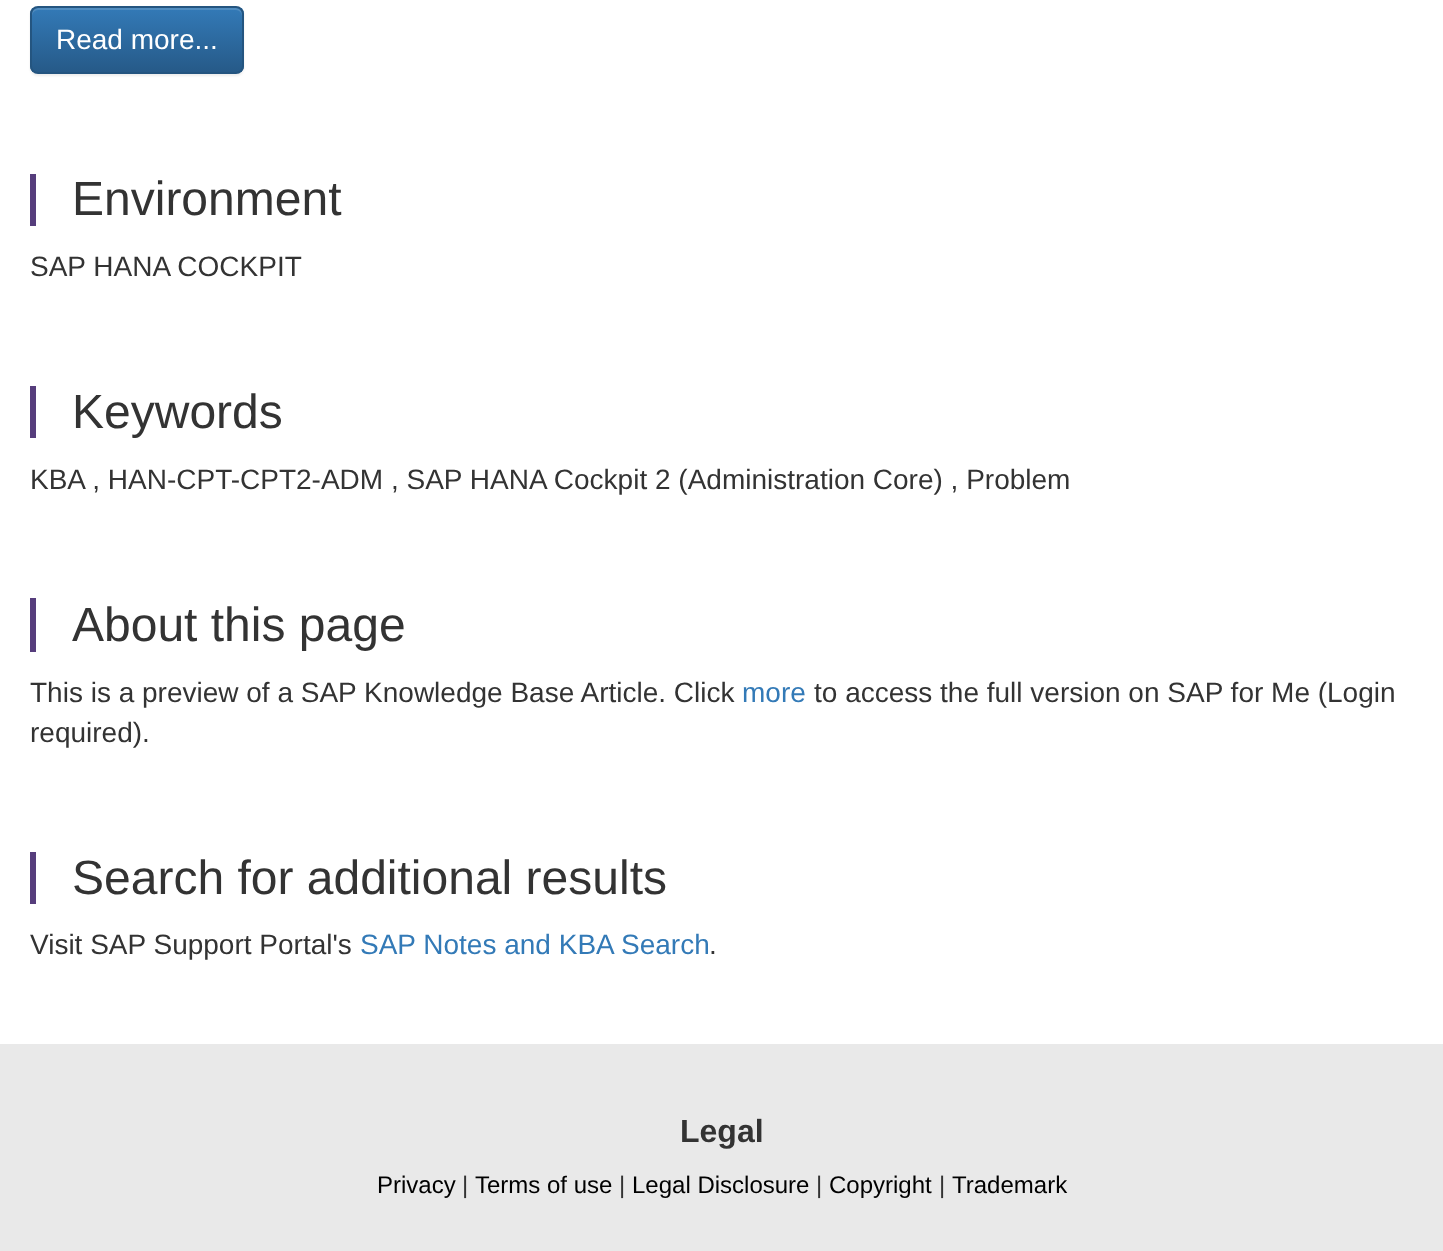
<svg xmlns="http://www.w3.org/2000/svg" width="1443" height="1251">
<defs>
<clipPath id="clip1"><rect x="30" y="6" width="214" height="68" rx="8"/></clipPath>
<linearGradient id="g1" gradientUnits="userSpaceOnUse" x1="137" y1="8" x2="137" y2="72"><stop offset="0" stop-color="#337ab7"/><stop offset="1" stop-color="#265a88"/></linearGradient>
</defs>
<rect width="100%" height="100%" fill="#fff"/>
<rect x="30" y="8" width="214" height="68" rx="8" fill="#00000012" filter="blur(1px)"/>
<g clip-path="url(#clip1)">
<rect x="30" y="8" width="214" height="64" fill="url(#g1)"/>
</g>
<path d="M38 10h198c3 0 6 3 6 6v-2c0-3-3-6-6-6h-198c-3 0-6 3-6 6v2c0-3 3-6 6-6z" fill="#ffffff26"/>
<rect x="31" y="7" width="212" height="66" rx="7" fill="none" stroke="#245580" stroke-width="2"/>
<text x="56" y="49" style="font-family:Liberation Sans;font-size:28px;fill:#fff">Read more...</text>
<rect x="30" y="174" width="6" height="52" fill="#563d7c"/>
<text x="72" y="215" style="font-family:Liberation Sans;font-size:48px;fill:#333">Environment</text>
<text x="30" y="276" style="font-family:Liberation Sans;font-size:28px;fill:#333">SAP HANA COCKPIT</text>
<rect x="30" y="386" width="6" height="52" fill="#563d7c"/>
<text x="72" y="428" style="font-family:Liberation Sans;font-size:48px;fill:#333">Keywords</text>
<text x="30" y="489" style="font-family:Liberation Sans;font-size:28px;fill:#333">KBA , HAN-CPT-CPT2-ADM , SAP HANA Cockpit 2 (Administration Core) , Problem</text>
<rect x="30" y="598" width="6" height="54" fill="#563d7c"/>
<text x="72" y="641" style="font-family:Liberation Sans;font-size:48px;fill:#333">About this page</text>
<text x="30" y="702" style="font-family:Liberation Sans;font-size:28px;fill:#333">This is a preview of a SAP Knowledge Base Article. Click</text>
<text x="742" y="702" style="font-family:Liberation Sans;font-size:28px;fill:#337ab7">more</text>
<text x="814" y="702" style="font-family:Liberation Sans;font-size:28px;fill:#333">to access the full version on SAP for Me (Login</text>
<text x="30" y="742" style="font-family:Liberation Sans;font-size:28px;fill:#333">required).</text>
<rect x="30" y="852" width="6" height="52" fill="#563d7c"/>
<text x="72" y="894" style="font-family:Liberation Sans;font-size:48px;fill:#333">Search for additional results</text>
<text x="30" y="954" style="font-family:Liberation Sans;font-size:28px;fill:#333">Visit SAP Support Portal's</text>
<text x="360" y="954" style="font-family:Liberation Sans;font-size:28px;fill:#337ab7">SAP Notes and KBA Search</text>
<text x="709" y="954" style="font-family:Liberation Sans;font-size:28px;fill:#333">.</text>
<rect y="1044" width="1443" height="207" fill="#e9e9e9"/>
<text x="680" y="1142" style="font-family:Liberation Sans;font-size:32px;font-weight:bold;fill:#333">Legal</text>
<text x="377" y="1193" style="font-family:Liberation Sans;font-size:24px;fill:#000">Privacy</text>
<text x="462" y="1193" style="font-family:Liberation Sans;font-size:24px;fill:#333">|</text>
<text x="475" y="1193" style="font-family:Liberation Sans;font-size:24px;fill:#000">Terms of use</text>
<text x="619" y="1193" style="font-family:Liberation Sans;font-size:24px;fill:#333">|</text>
<text x="632" y="1193" style="font-family:Liberation Sans;font-size:24px;fill:#000">Legal Disclosure</text>
<text x="816" y="1193" style="font-family:Liberation Sans;font-size:24px;fill:#333">|</text>
<text x="829" y="1193" style="font-family:Liberation Sans;font-size:24px;fill:#000">Copyright</text>
<text x="939" y="1193" style="font-family:Liberation Sans;font-size:24px;fill:#333">|</text>
<text x="952" y="1193" style="font-family:Liberation Sans;font-size:24px;fill:#000">Trademark</text>
</svg>
